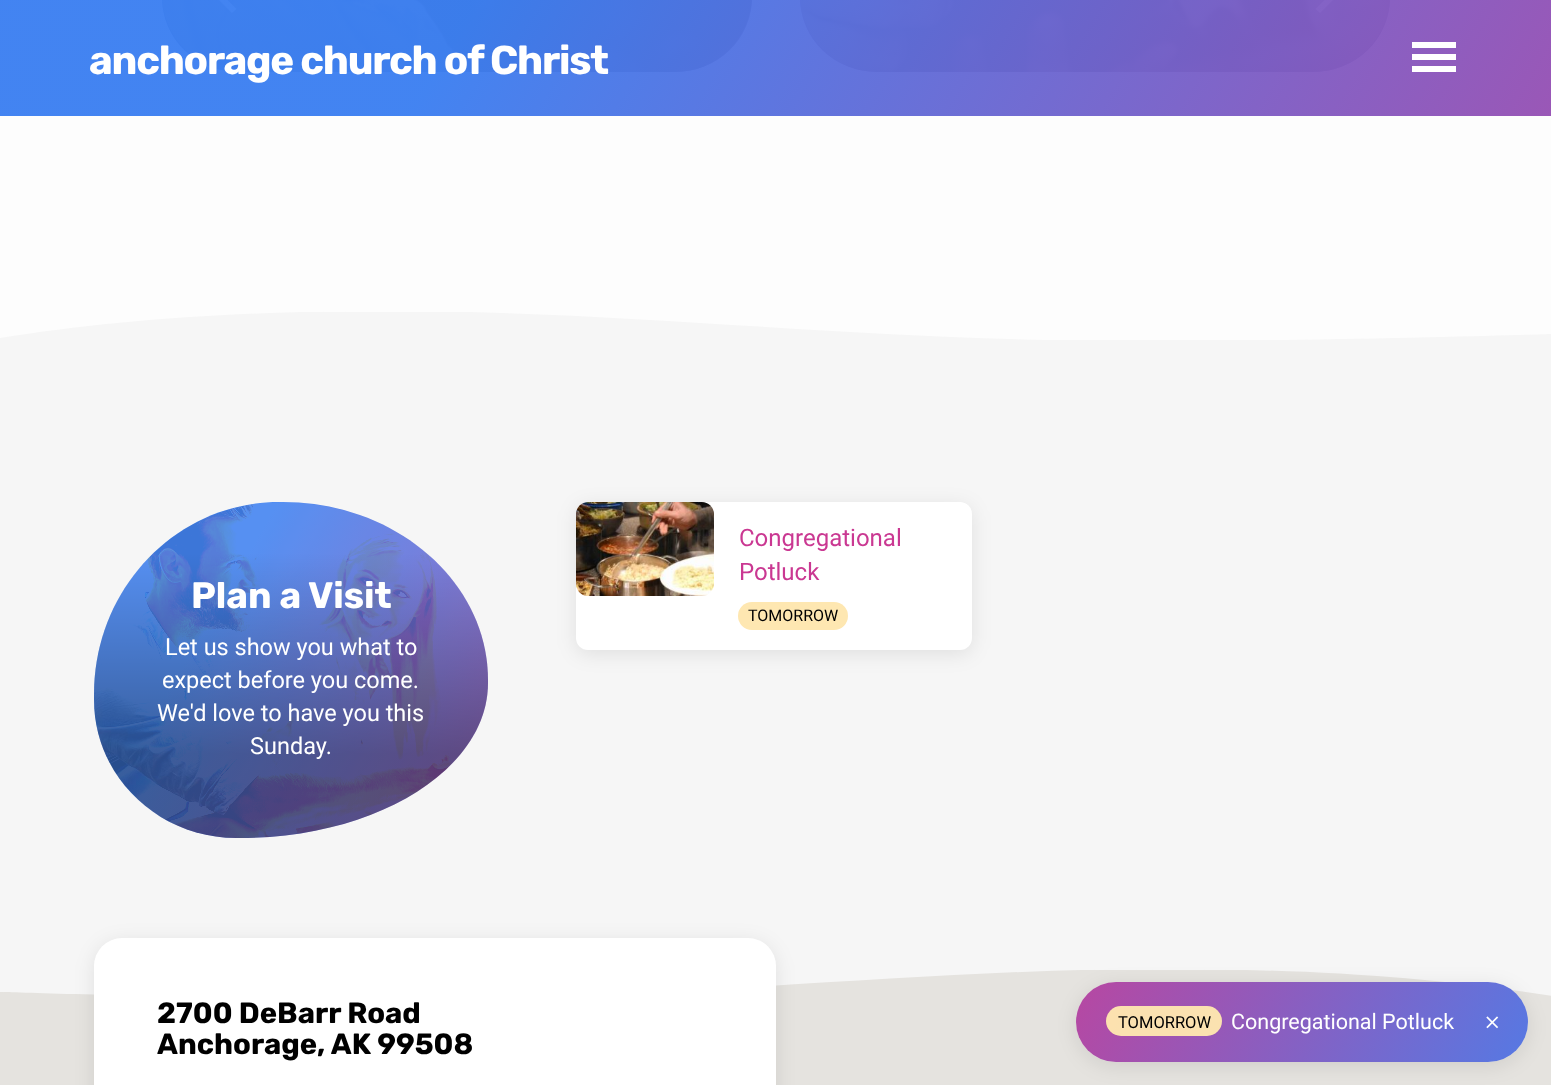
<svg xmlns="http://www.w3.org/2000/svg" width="1551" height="1085">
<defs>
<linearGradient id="g1" gradientUnits="userSpaceOnUse" x1="202" y1="-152" x2="915" y2="260"><stop offset="0.21" stop-color="#4384f1"/><stop offset="1" stop-color="#cc3e95"/></linearGradient>
<linearGradient id="g2" gradientUnits="userSpaceOnUse" x1="460" y1="-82" x2="460" y2="72"><stop offset="0" stop-color="#000" stop-opacity="0"/><stop offset="0.55" stop-color="#000" stop-opacity="0"/><stop offset="0.85" stop-color="#000" stop-opacity="0.26"/><stop offset="1" stop-color="#000" stop-opacity="0.26"/></linearGradient>
<linearGradient id="g3" gradientUnits="userSpaceOnUse" x1="739" y1="-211" x2="1451" y2="201"><stop offset="0" stop-color="#cc3e95"/><stop offset="1" stop-color="#4384f1"/></linearGradient>
<linearGradient id="g4" gradientUnits="userSpaceOnUse" x1="1098" y1="-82" x2="1098" y2="72"><stop offset="0" stop-color="#000" stop-opacity="0"/><stop offset="0.55" stop-color="#000" stop-opacity="0"/><stop offset="0.85" stop-color="#000" stop-opacity="0.26"/><stop offset="1" stop-color="#000" stop-opacity="0.26"/></linearGradient>
<linearGradient id="g5" gradientUnits="userSpaceOnUse" x1="169" y1="-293" x2="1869" y2="689"><stop offset="0.21" stop-color="#3d80f1" stop-opacity="0.97"/><stop offset="1" stop-color="#ca3892" stop-opacity="0.97"/></linearGradient>
<clipPath id="clip1"><rect y="310" width="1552" height="30"/></clipPath>
<linearGradient id="g6" gradientUnits="userSpaceOnUse" x1="58" y1="565" x2="711" y2="943"><stop offset="0.21" stop-color="#4384f1"/><stop offset="1" stop-color="#cb3e95"/></linearGradient>
<linearGradient id="g7" gradientUnits="userSpaceOnUse" x1="291" y1="502" x2="291" y2="838"><stop offset="0" stop-color="#000" stop-opacity="0"/><stop offset="0.15" stop-color="#000" stop-opacity="0"/><stop offset="0.75" stop-color="#000" stop-opacity="0.35"/><stop offset="1" stop-color="#000" stop-opacity="0.35"/></linearGradient>
<clipPath id="clip2"><path d="M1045 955h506v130h-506zm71 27h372c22 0 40 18 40 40c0 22-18 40-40 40h-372c-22 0-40-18-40-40c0-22 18-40 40-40z" clip-rule="evenodd"/></clipPath>
<linearGradient id="g8" gradientUnits="userSpaceOnUse" x1="1040" y1="871" x2="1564" y2="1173"><stop offset="0" stop-color="#ca3892" stop-opacity="0.97"/><stop offset="1" stop-color="#3d80f1" stop-opacity="0.97"/></linearGradient>
</defs>
<rect width="100%" height="100%" fill="#fdfdfd"/>
<rect x="162" y="-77" width="590" height="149" rx="77" fill="url(#g1)"/>
<image x="162" y="0" width="590" height="72" href="media/1.png"/>
<rect x="162" y="-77" width="590" height="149" rx="77" fill="#00000073"/>
<rect x="162" y="-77" width="590" height="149" rx="77" fill="url(#g2)"/>
<path d="M236.5 9l-14-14l14-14l-4.5-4l-18 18l18 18z" fill="#fff"/>
<rect x="800" y="-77" width="590" height="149" rx="77" fill="url(#g3)"/>
<image x="800" y="0" width="590" height="72" href="media/2.png"/>
<rect x="800" y="-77" width="590" height="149" rx="77" fill="#00000073"/>
<rect x="800" y="-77" width="590" height="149" rx="77" fill="url(#g4)"/>
<path d="M1315.5 9l14-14l-14-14l4.5-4l18 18l-18 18z" fill="#fff"/>
<rect width="1551" height="116" fill="url(#g5)"/>
<text x="89" y="74" style="font-family:Rubik;font-size:40.25px;font-weight:bold;letter-spacing:-1.25px;fill:#fff">anchorage church of Christ</text>
<rect x="1412" y="42" width="44" height="6" fill="#fff"/>
<rect x="1412" y="54" width="44" height="6" fill="#fff"/>
<rect x="1412" y="66" width="44" height="6" fill="#fff"/>
<rect y="312" width="1551" height="658" fill="#f6f6f6"/>
<g clip-path="url(#clip1)">
<path d="M0 338c106-17 232-27 385-27c256 0 466 30 757 30c194 0 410-7 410-7v-24h-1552" fill="#fdfdfd"/>
</g>
<path d="M279 502c-102 0-185 86-185 192v6c0 76 64 138 142 138h4c137 0 248-69 248-155v-3c0-98-92-178-205-178z" fill="url(#g6)"/>
<image x="94" y="502" width="394" height="336" href="media/3.png"/>
<path d="M279 502c-102 0-185 86-185 192v6c0 76 64 138 142 138h4c137 0 248-69 248-155v-3c0-98-92-178-205-178z" fill="url(#g7)"/>
<text x="191" y="608" style="font-family:Rubik;font-size:36.75px;font-weight:bold;fill:#fff">Plan a Visit</text>
<text x="165" y="655" style="font-family:Roboto;font-size:23.5px;fill:#fff">Let us show you what to</text>
<text x="162" y="688" style="font-family:Roboto;font-size:23.5px;fill:#fff">expect before you come.</text>
<text x="157" y="721" style="font-family:Roboto;font-size:23.5px;fill:#fff">We'd love to have you this</text>
<text x="250" y="754" style="font-family:Roboto;font-size:23.5px;fill:#fff">Sunday.</text>
<rect x="576" y="506" width="396" height="148" rx="12" fill="#00000017" filter="blur(10px)"/>
<rect x="576" y="502" width="396" height="148" rx="12" fill="#fff"/>
<image x="576" y="502" width="138" height="94" href="media/4.png"/>
<text x="739" y="546" style="font-family:Roboto;font-size:24px;fill:#ca3892">Congregational</text>
<text x="739" y="580" style="font-family:Roboto;font-size:24px;fill:#ca3892">Potluck</text>
<rect x="738" y="602" width="110" height="28" rx="14" fill="#fee7b1"/>
<text x="748" y="621" style="font-family:Roboto;font-size:16px;fill:#000">TOMORROW</text>
<rect y="970" width="1551" height="115" fill="#e5e3df"/>
<path d="M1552 996c-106-17-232-27-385-27c-256 0-466 30-757 30c-194 0-410-7-410-7v-24h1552" fill="#f6f6f6"/>
<rect x="94" y="942" width="682" height="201" rx="28" fill="#00000017" filter="blur(10px)"/>
<rect x="94" y="938" width="682" height="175" rx="28" fill="#fff"/>
<text x="157" y="1023" style="font-family:Rubik;font-size:29.25px;font-weight:bold;fill:#000">2700 DeBarr Road</text>
<text x="157" y="1054" style="font-family:Rubik;font-size:29.25px;font-weight:bold;fill:#000">Anchorage, AK 99508</text>
<g clip-path="url(#clip2)">
<rect x="1076" y="986" width="452" height="80" rx="40" fill="#00000017" filter="blur(10px)"/>
</g>
<rect x="1076" y="982" width="452" height="80" rx="40" fill="url(#g8)"/>
<rect x="1106" y="1006" width="116" height="30" rx="15" fill="#fee6aff7"/>
<text x="1118" y="1028" style="font-family:Roboto;font-size:16.5px;fill:#000">TOMORROW</text>
<text x="1231" y="1029" style="font-family:Roboto;font-size:21.5px;fill:#fff">Congregational Potluck</text>
<image x="1486" y="1016" width="13" height="13" href="media/5.png"/>
</svg>
